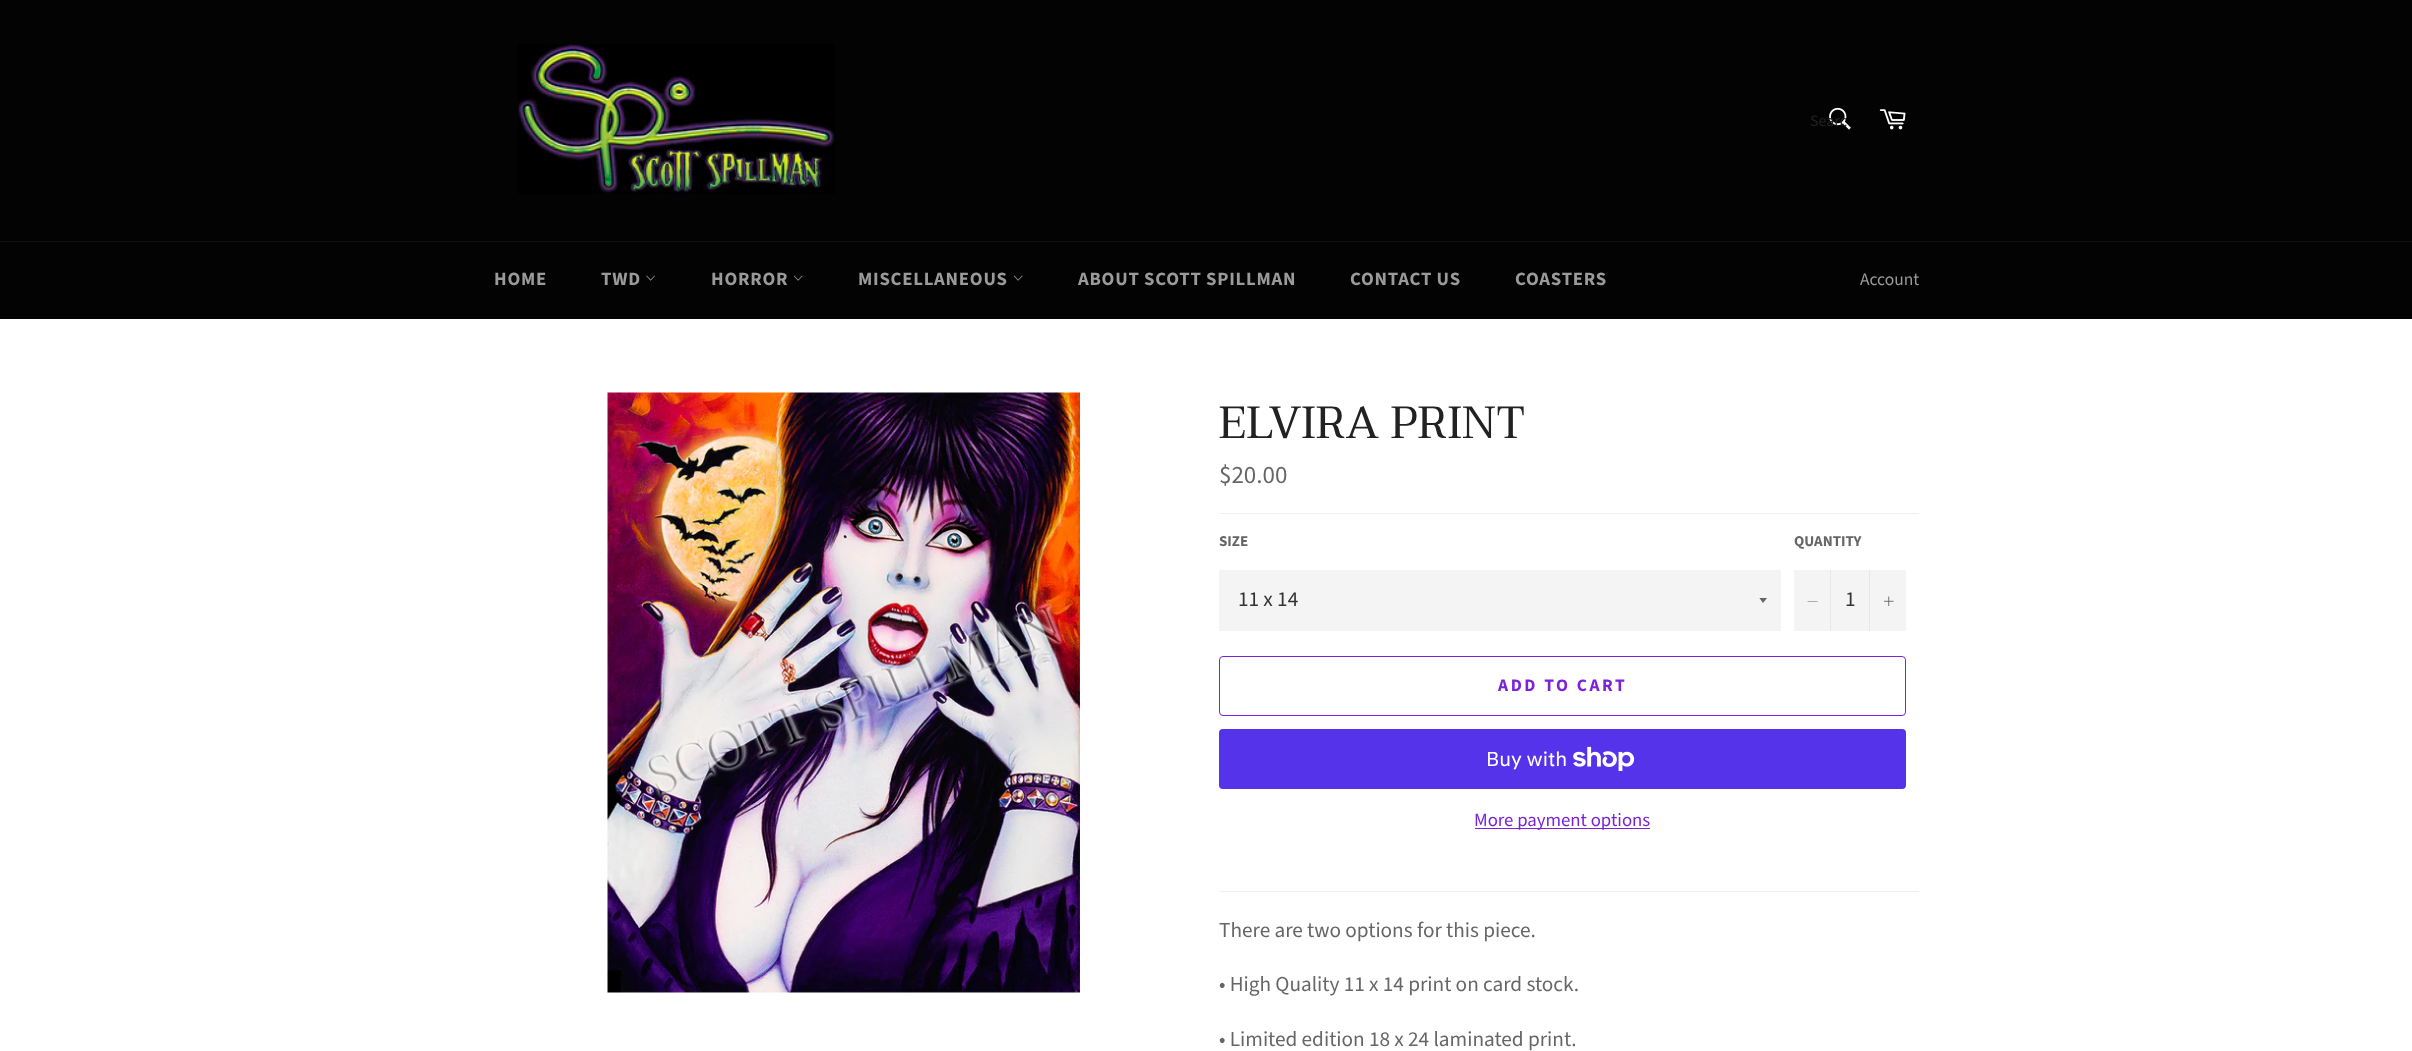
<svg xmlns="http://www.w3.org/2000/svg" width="2412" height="1051">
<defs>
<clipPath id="clip1"><rect x="1759" y="598" width="10" height="6"/></clipPath>
</defs>
<rect width="100%" height="100%" fill="#030303"/>
<image x="518" y="44" width="317" height="150" href="media/1.png"/>
<image x="1829" y="107" width="22" height="23" href="media/2.png"/>
<text x="1810" y="126" style="font-family:Source Sans Pro;font-size:16px;fill:#222">Searc</text>
<image x="1879" y="109" width="27" height="21" href="media/3.png"/>
<rect y="241" width="2412" height="1" fill="#101010"/>
<text x="494" y="285" style="font-family:Source Sans Pro;font-size:18.75px;font-weight:bold;letter-spacing:0.75px;fill:#9a9a9a">HOME</text>
<text x="601" y="285" style="font-family:Source Sans Pro;font-size:18.75px;font-weight:bold;letter-spacing:0.75px;fill:#9a9a9a">TWD</text>
<image x="646" y="275" width="9" height="6" href="media/4.png"/>
<text x="711" y="285" style="font-family:Source Sans Pro;font-size:18.75px;font-weight:bold;letter-spacing:0.75px;fill:#9a9a9a">HORROR</text>
<image x="793" y="275" width="10" height="6" href="media/5.png"/>
<text x="858" y="285" style="font-family:Source Sans Pro;font-size:18.75px;font-weight:bold;letter-spacing:0.75px;fill:#9a9a9a">MISCELLANEOUS</text>
<image x="1013" y="275" width="10" height="6" href="media/5.png"/>
<text x="1078" y="285" style="font-family:Source Sans Pro;font-size:18.75px;font-weight:bold;letter-spacing:0.75px;fill:#9a9a9a">ABOUT SCOTT SPILLMAN</text>
<text x="1350" y="285" style="font-family:Source Sans Pro;font-size:18.75px;font-weight:bold;letter-spacing:0.75px;fill:#9a9a9a">CONTACT US</text>
<text x="1515" y="285" style="font-family:Source Sans Pro;font-size:18.75px;font-weight:bold;letter-spacing:0.75px;fill:#9a9a9a">COASTERS</text>
<text x="1860" y="285" style="font-family:Source Sans Pro;font-size:17.5px;fill:#9a9a9a">Account</text>
<rect y="319" width="2412" height="732" fill="#fff"/>
<image x="607" y="392" width="473" height="601" href="media/6.png"/>
<text x="1219" y="438" style="font-family:Taviraj;font-size:45px;fill:#222">ELVIRA PRINT</text>
<text x="1219" y="483" style="font-family:Source Sans Pro;font-size:25px;fill:#666">$20.00</text>
<rect x="1219" y="513" width="700" height="1" fill="#f0f0f0"/>
<text x="1219" y="546" style="font-family:Source Sans Pro;font-size:15px;font-weight:bold;fill:#666">SIZE</text>
<rect x="1219" y="570" width="562" height="61" fill="#f4f4f4"/>
<g clip-path="url(#clip1)">
<path d="M1759 597.5l4 5.5l4.5-5.5z" fill="#666"/>
</g>
<text x="1238" y="606" style="font-family:Source Sans Pro;font-size:21.25px;fill:#333">11 x 14</text>
<text x="1794" y="546" style="font-family:Source Sans Pro;font-size:15px;font-weight:bold;fill:#666">QUANTITY</text>
<rect x="1794" y="570" width="112" height="61" fill="#f4f4f4"/>
<rect x="1830" y="570" width="1" height="61" fill="#e7e7e7"/>
<path d="M1817.5 601v.5h-10v-.5z" fill="#666" fill-rule="evenodd"/>
<text x="1845" y="606" style="font-family:Source Sans Pro;font-size:21.25px;fill:#333">1</text>
<rect x="1869" y="570" width="1" height="61" fill="#e7e7e7"/>
<image x="1884" y="596" width="10" height="10" href="media/7.png"/>
<rect x="1219.5" y="656.5" width="686" height="59" rx="3.5" fill="none" stroke="#7a23d9"/>
<text x="1498" y="691" style="font-family:Source Sans Pro;font-size:17.5px;font-weight:bold;letter-spacing:2.6px;fill:#7a23d9">ADD TO CART</text>
<rect x="1219" y="729" width="687" height="60" rx="4" fill="#5433eb"/>
<text x="1486" y="766" style="font-family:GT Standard;font-size:20px;fill:#fff">Buy with</text>
<image x="1573" y="746" width="62" height="25" href="media/8.png"/>
<rect x="1475" y="828" width="175" height="1" fill="#7a23d9"/>
<text x="1474" y="826" style="font-family:Source Sans Pro;font-size:18.75px;fill:#7a23d9">More payment options</text>
<rect x="1219" y="891" width="700" height="1" fill="#f0f0f0"/>
<text x="1219" y="937" style="font-family:Source Sans Pro;font-size:21.25px;fill:#666">There are two options for this piece.</text>
<text x="1219" y="991" style="font-family:Source Sans Pro;font-size:21.25px;fill:#666">• High Quality 11 x 14 print on card stock.</text>
<text x="1219" y="1046" style="font-family:Source Sans Pro;font-size:21.25px;fill:#666">• Limited edition 18 x 24 laminated print.</text>
</svg>
